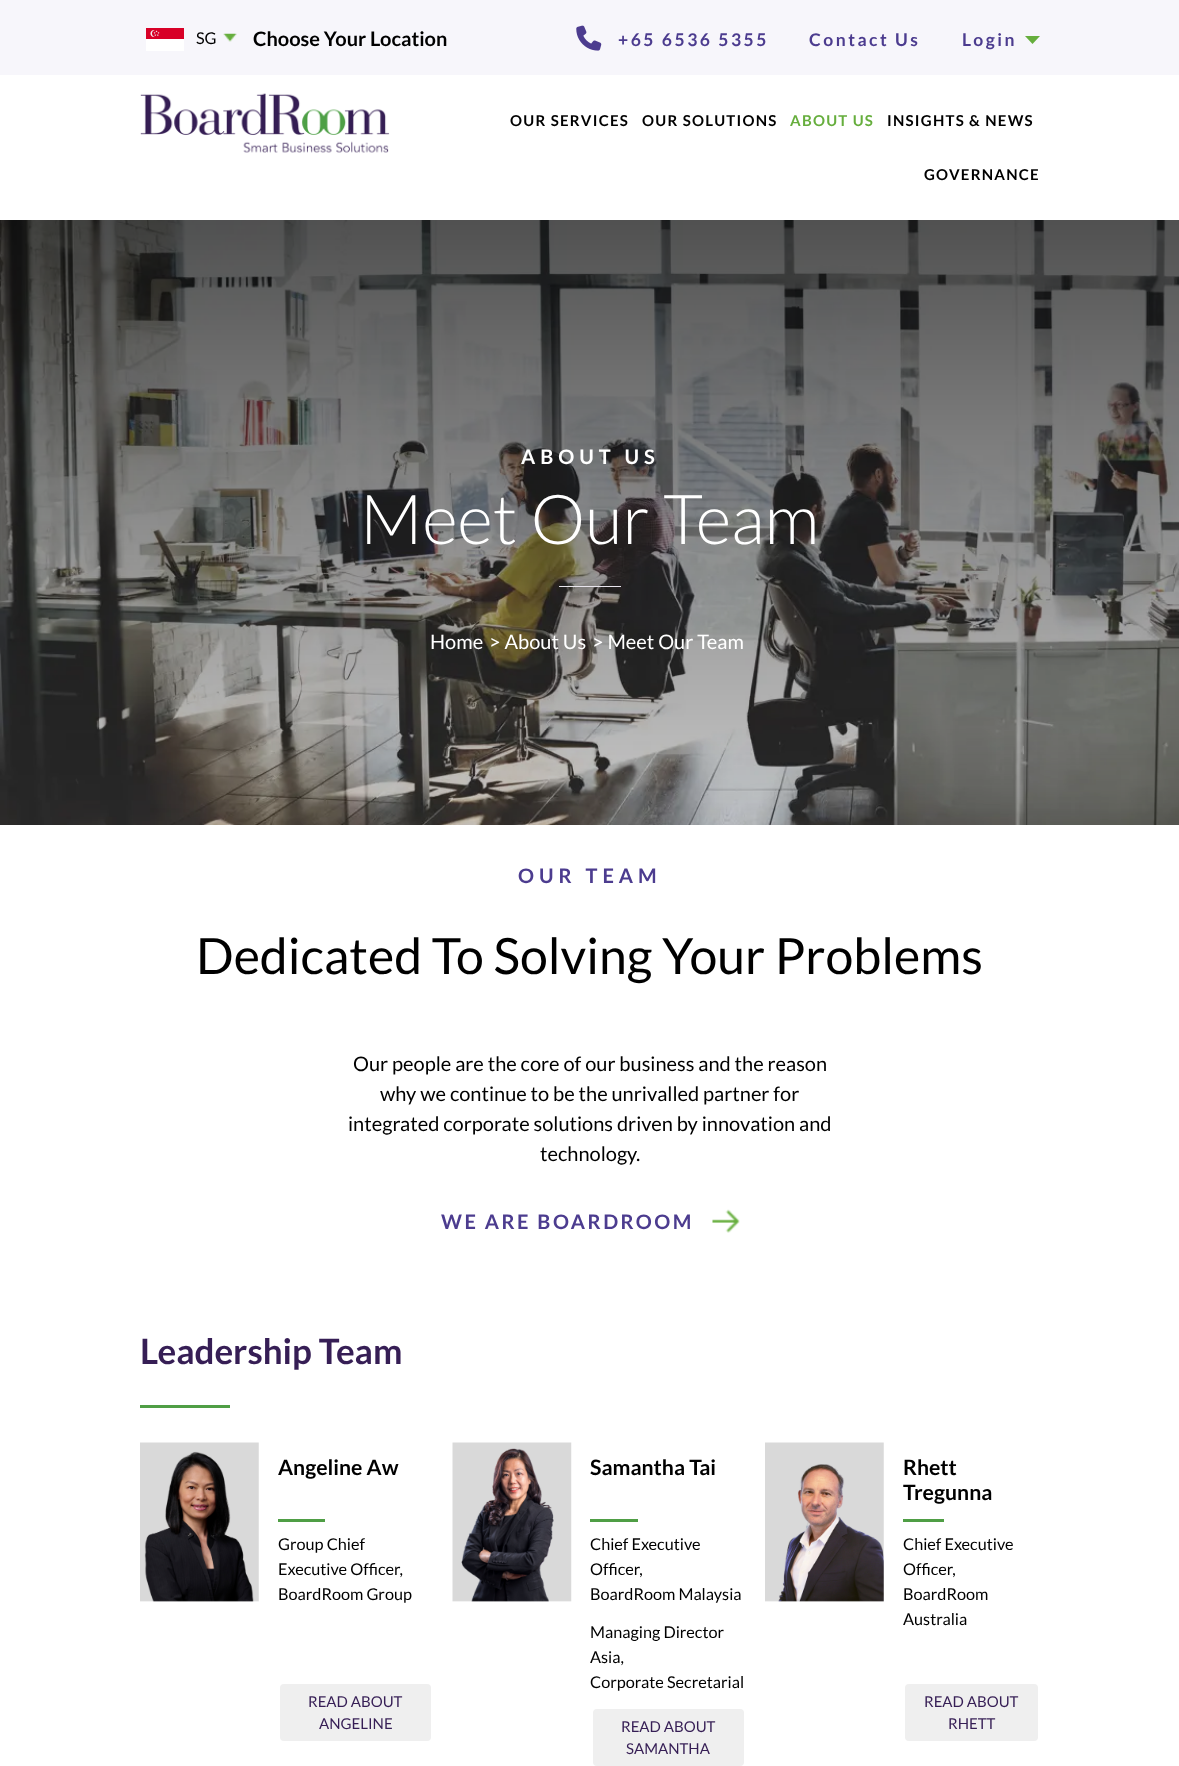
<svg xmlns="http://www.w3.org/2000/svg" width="1179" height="1766">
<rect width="100%" height="100%" fill="#fff"/>
<rect width="1179" height="75" fill="#f7f6fb"/>
<image x="146" y="28" width="38" height="23" href="media/1.png"/>
<text x="196" y="44" style="font-family:Lato;font-size:16.25px;fill:#000">SG</text>
<image x="223" y="33" width="14" height="9" href="media/2.png"/>
<text x="253" y="46" style="font-family:Lato;font-size:20px;font-weight:bold;fill:#000">Choose Your Location</text>
<image x="576" y="25" width="26" height="26" href="media/3.png"/>
<text x="618" y="46" style="font-family:Lato;font-size:17.5px;font-weight:bold;letter-spacing:2.5px;fill:#4c3c8f">+65 6536 5355</text>
<text x="809" y="46" style="font-family:Lato;font-size:17.5px;font-weight:bold;letter-spacing:2.5px;fill:#4c3c8f">Contact Us</text>
<text x="962" y="46" style="font-family:Lato;font-size:17.5px;font-weight:bold;letter-spacing:2.5px;fill:#4c3c8f">Login</text>
<path d="M1025 36h15l-7.5 8z" fill="#66ae3d"/>
<image x="140" y="93" width="250" height="60" href="media/4.png"/>
<text x="510" y="126" style="font-family:Lato;font-size:15px;font-weight:bold;letter-spacing:1.25px;fill:#000">OUR SERVICES</text>
<text x="642" y="126" style="font-family:Lato;font-size:15px;font-weight:bold;letter-spacing:1.25px;fill:#000">OUR SOLUTIONS</text>
<text x="790" y="126" style="font-family:Lato;font-size:15px;font-weight:bold;letter-spacing:1.25px;fill:#66ae3d">ABOUT US</text>
<text x="887" y="126" style="font-family:Lato;font-size:15px;font-weight:bold;letter-spacing:1.25px;fill:#000">INSIGHTS &amp; NEWS</text>
<text x="924" y="180" style="font-family:Lato;font-size:15px;font-weight:bold;letter-spacing:1.25px;fill:#000">GOVERNANCE</text>
<image x="0" y="220" width="1179" height="605" href="media/5.png"/>
<text x="521" y="464" style="font-family:Lato;font-size:20px;font-weight:bold;letter-spacing:5px;fill:#fff">ABOUT US</text>
<text x="360" y="544" style="font-family:Lato;font-size:68.75px;font-weight:300;fill:#fff">Meet Our Team</text>
<rect x="559" y="586" width="62" height="1" fill="#e9e6ee"/>
<text x="430" y="649" style="font-family:Lato;font-size:20px;fill:#fff">Home</text>
<text x="489" y="649" style="font-family:Lato;font-size:20px;fill:#fff">&gt; About Us</text>
<text x="592" y="649" style="font-family:Lato;font-size:20px;fill:#fff">&gt; Meet Our Team</text>
<text x="518" y="883" style="font-family:Lato;font-size:20px;font-weight:bold;letter-spacing:5px;fill:#4c3c8f">OUR TEAM</text>
<text x="196" y="974" style="font-family:Lato;font-size:50px;fill:#000">Dedicated To Solving Your Problems</text>
<text x="353" y="1071" style="font-family:Lato;font-size:20px;fill:#000">Our people are the core of our business and the reason</text>
<text x="380" y="1101" style="font-family:Lato;font-size:20px;fill:#000">why we continue to be the unrivalled partner for</text>
<text x="348" y="1131" style="font-family:Lato;font-size:20px;fill:#000">integrated corporate solutions driven by innovation and</text>
<text x="540" y="1161" style="font-family:Lato;font-size:20px;fill:#000">technology.</text>
<text x="441" y="1229" style="font-family:Lato;font-size:20px;font-weight:bold;letter-spacing:2.5px;fill:#4c3c8f">WE ARE BOARDROOM</text>
<image x="712" y="1209" width="28" height="24" href="media/6.png"/>
<text x="140" y="1364" style="font-family:Lato;font-size:35px;font-weight:bold;fill:#361e55">Leadership Team</text>
<rect x="140" y="1405" width="90" height="3" fill="#4f9e45"/>
<image x="140" y="1442" width="119" height="160" href="media/7.png"/>
<text x="278" y="1475" style="font-family:Lato;font-size:21.25px;font-weight:bold;fill:#000">Angeline Aw</text>
<rect x="278" y="1519" width="47" height="3" fill="#4f9e45"/>
<text x="278" y="1550" style="font-family:Lato;font-size:16.25px;fill:#000">Group Chief</text>
<text x="278" y="1575" style="font-family:Lato;font-size:16.25px;fill:#000">Executive Officer,</text>
<text x="278" y="1600" style="font-family:Lato;font-size:16.25px;fill:#000">BoardRoom Group</text>
<rect x="280" y="1684" width="151" height="57" rx="4" fill="#efefef"/>
<text x="308" y="1707" style="font-family:Lato;font-size:15px;fill:#361e55">READ ABOUT</text>
<text x="319" y="1729" style="font-family:Lato;font-size:15px;fill:#361e55">ANGELINE</text>
<image x="452" y="1442" width="120" height="160" href="media/8.png"/>
<text x="590" y="1475" style="font-family:Lato;font-size:21.25px;font-weight:bold;fill:#000">Samantha Tai</text>
<rect x="590" y="1519" width="48" height="3" fill="#4f9e45"/>
<text x="590" y="1550" style="font-family:Lato;font-size:16.25px;fill:#000">Chief Executive</text>
<text x="590" y="1575" style="font-family:Lato;font-size:16.25px;fill:#000">Officer,</text>
<text x="590" y="1600" style="font-family:Lato;font-size:16.25px;fill:#000">BoardRoom Malaysia</text>
<text x="590" y="1638" style="font-family:Lato;font-size:16.25px;fill:#000">Managing Director</text>
<text x="590" y="1663" style="font-family:Lato;font-size:16.25px;fill:#000">Asia,</text>
<text x="590" y="1688" style="font-family:Lato;font-size:16.25px;fill:#000">Corporate Secretarial</text>
<rect x="593" y="1709" width="151" height="57" rx="4" fill="#efefef"/>
<text x="621" y="1732" style="font-family:Lato;font-size:15px;fill:#361e55">READ ABOUT</text>
<text x="626" y="1754" style="font-family:Lato;font-size:15px;fill:#361e55">SAMANTHA</text>
<image x="765" y="1442" width="119" height="160" href="media/9.png"/>
<text x="903" y="1475" style="font-family:Lato;font-size:21.25px;font-weight:bold;fill:#000">Rhett</text>
<text x="903" y="1500" style="font-family:Lato;font-size:21.25px;font-weight:bold;fill:#000">Tregunna</text>
<rect x="903" y="1519" width="41" height="3" fill="#4f9e45"/>
<text x="903" y="1550" style="font-family:Lato;font-size:16.25px;fill:#000">Chief Executive</text>
<text x="903" y="1575" style="font-family:Lato;font-size:16.25px;fill:#000">Officer,</text>
<text x="903" y="1600" style="font-family:Lato;font-size:16.25px;fill:#000">BoardRoom</text>
<text x="903" y="1625" style="font-family:Lato;font-size:16.25px;fill:#000">Australia</text>
<rect x="905" y="1684" width="133" height="57" rx="4" fill="#efefef"/>
<text x="924" y="1707" style="font-family:Lato;font-size:15px;fill:#361e55">READ ABOUT</text>
<text x="948" y="1729" style="font-family:Lato;font-size:15px;fill:#361e55">RHETT</text>
</svg>
